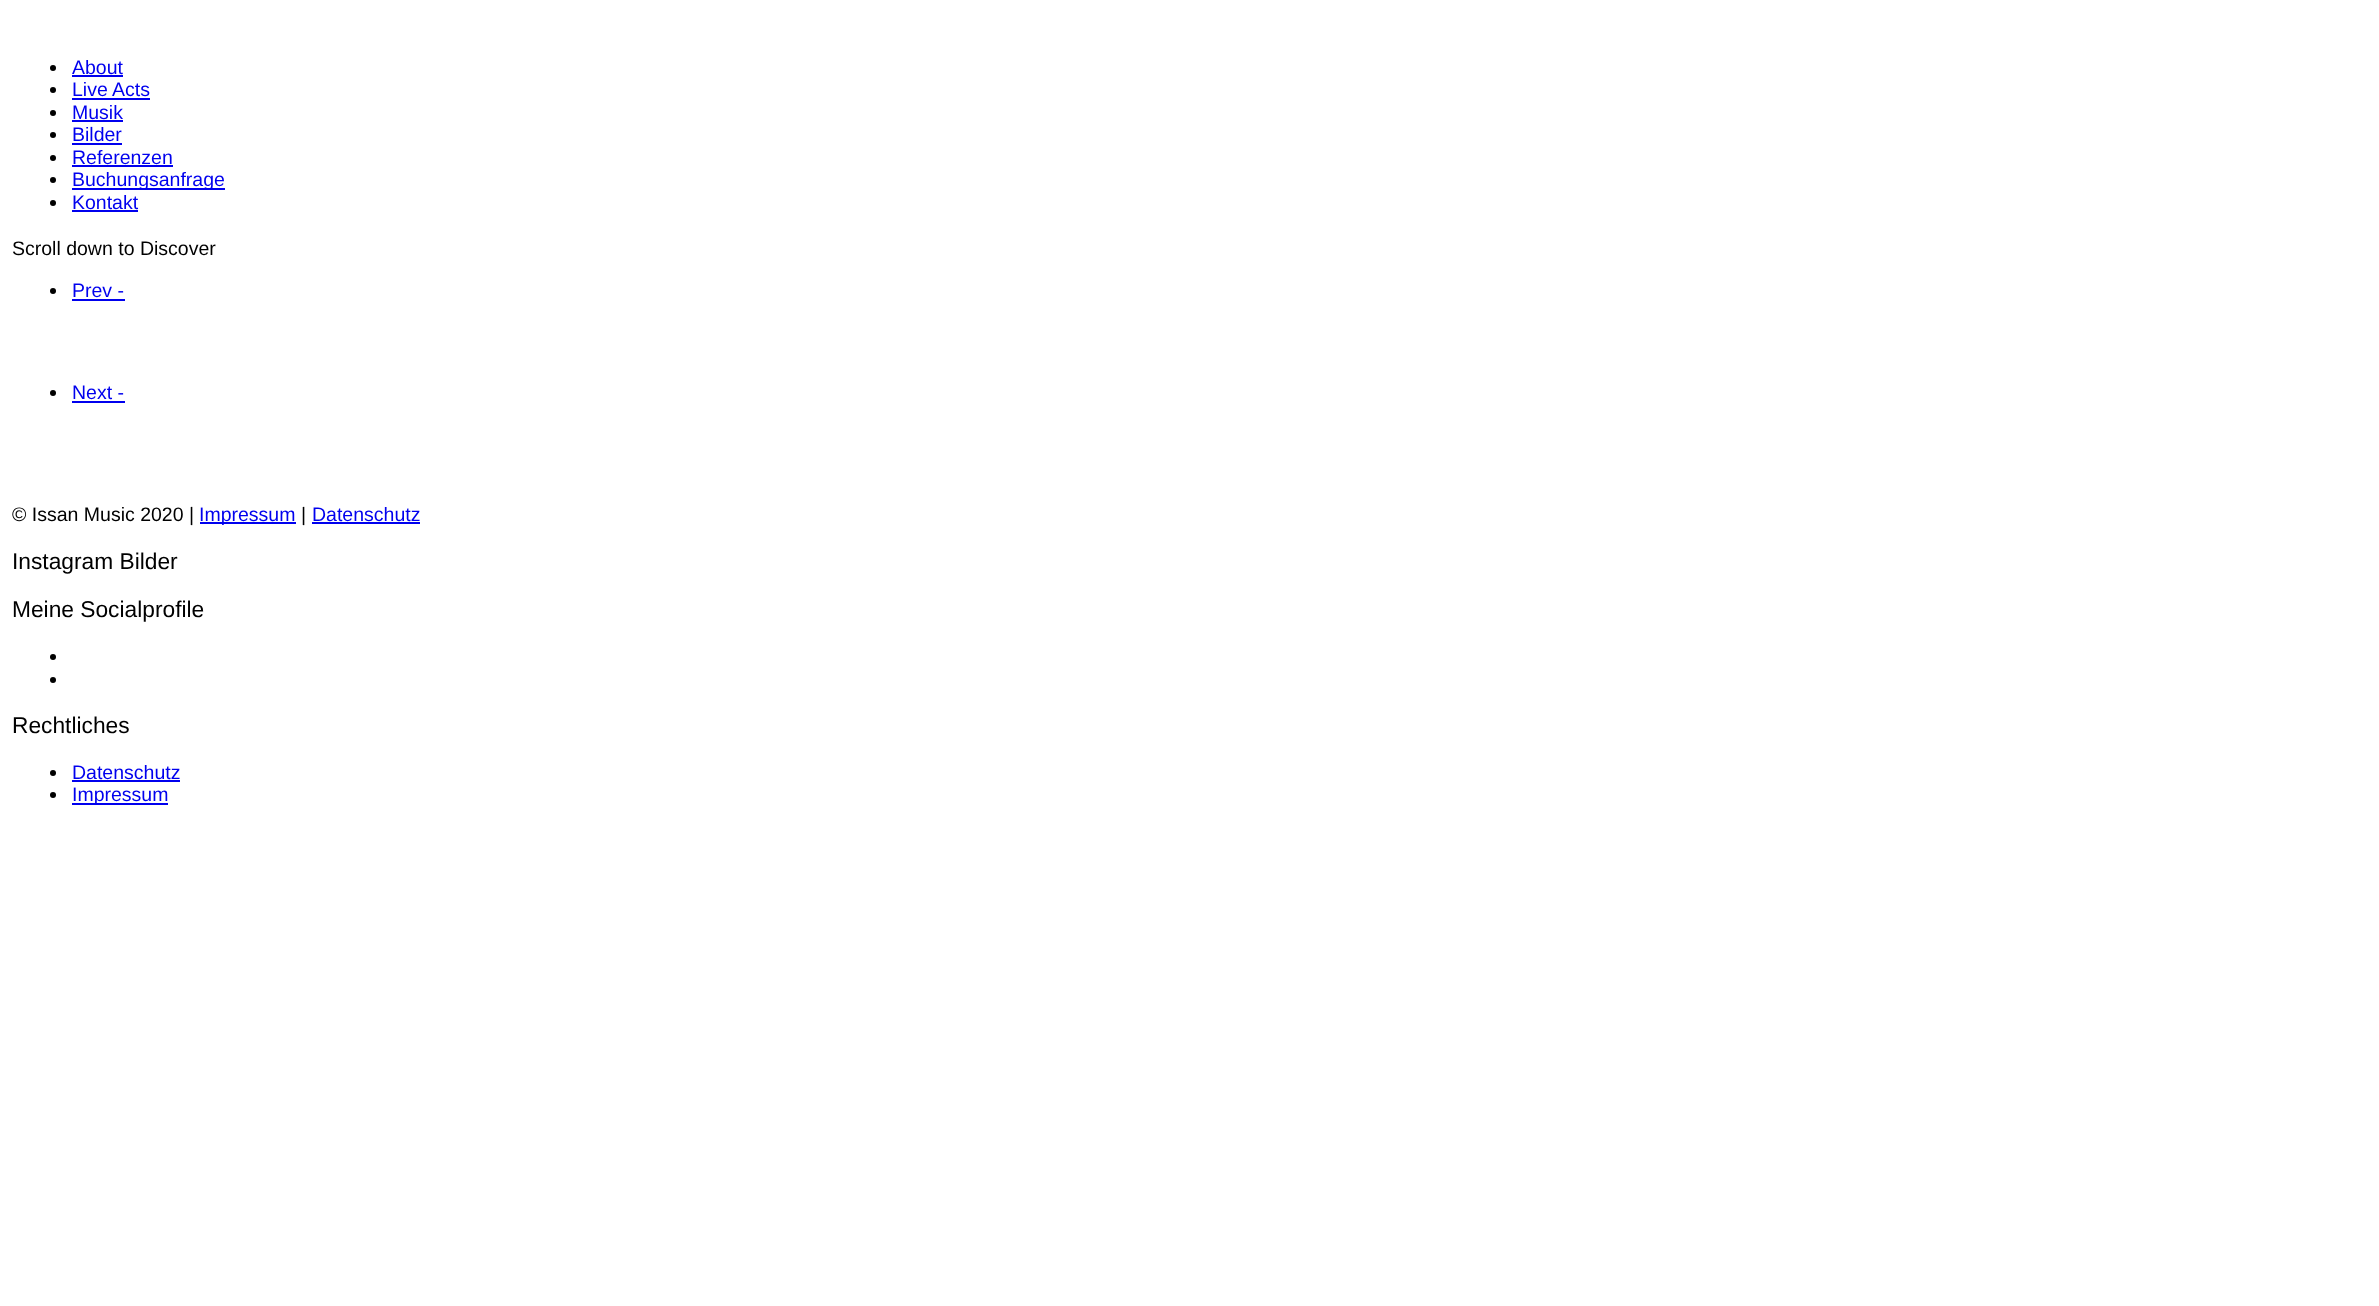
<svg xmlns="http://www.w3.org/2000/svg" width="2379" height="1306">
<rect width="100%" height="100%" fill="#fff"/>
<circle cx="53" cy="68" r="3" fill="#000"/>
<text x="72" y="74" style="font-family:Liberation Sans;font-size:19.5px;fill:#00e">About</text>
<rect x="72" y="75" width="51" height="2" fill="#00e"/>
<circle cx="53" cy="90" r="3" fill="#000"/>
<text x="72" y="96" style="font-family:Liberation Sans;font-size:19.5px;fill:#00e">Live Acts</text>
<rect x="72" y="98" width="78" height="2" fill="#00e"/>
<circle cx="53" cy="113" r="3" fill="#000"/>
<text x="72" y="119" style="font-family:Liberation Sans;font-size:19.5px;fill:#00e">Musik</text>
<rect x="72" y="120" width="51" height="2" fill="#00e"/>
<circle cx="53" cy="135" r="3" fill="#000"/>
<text x="72" y="141" style="font-family:Liberation Sans;font-size:19.5px;fill:#00e">Bilder</text>
<rect x="72" y="143" width="50" height="2" fill="#00e"/>
<circle cx="53" cy="158" r="3" fill="#000"/>
<text x="72" y="164" style="font-family:Liberation Sans;font-size:19.5px;fill:#00e">Referenzen</text>
<rect x="72" y="165" width="101" height="2" fill="#00e"/>
<circle cx="53" cy="180" r="3" fill="#000"/>
<rect x="72" y="188" width="153" height="2" fill="#00e"/>
<text x="72" y="186" style="font-family:Liberation Sans;font-size:19.5px;fill:#00e">Buchungsanfrage</text>
<circle cx="53" cy="203" r="3" fill="#000"/>
<text x="72" y="209" style="font-family:Liberation Sans;font-size:19.5px;fill:#00e">Kontakt</text>
<rect x="72" y="210" width="66" height="2" fill="#00e"/>
<text x="12" y="255" style="font-family:Liberation Sans;font-size:19.5px;fill:#000">Scroll down to Discover</text>
<circle cx="53" cy="291" r="3" fill="#000"/>
<text x="72" y="297" style="font-family:Liberation Sans;font-size:19.5px;fill:#00e">Prev -</text>
<rect x="72" y="299" width="53" height="2" fill="#00e"/>
<circle cx="53" cy="393" r="3" fill="#000"/>
<text x="72" y="399" style="font-family:Liberation Sans;font-size:19.5px;fill:#00e">Next -</text>
<rect x="72" y="401" width="53" height="2" fill="#00e"/>
<text x="12" y="521" style="font-family:Liberation Sans;font-size:19.5px;fill:#000">© Issan Music 2020 |</text>
<rect x="200" y="522" width="96" height="2" fill="#00e"/>
<text x="199" y="521" style="font-family:Liberation Sans;font-size:19.5px;fill:#00e">Impressum</text>
<text x="301" y="521" style="font-family:Liberation Sans;font-size:19.5px;fill:#000">|</text>
<text x="312" y="521" style="font-family:Liberation Sans;font-size:19.5px;fill:#00e">Datenschutz</text>
<rect x="312" y="522" width="108" height="2" fill="#00e"/>
<text x="12" y="569" style="font-family:Liberation Sans;font-size:22.75px;fill:#000">Instagram Bilder</text>
<text x="12" y="617" style="font-family:Liberation Sans;font-size:22.75px;fill:#000">Meine Socialprofile</text>
<circle cx="53" cy="657" r="3" fill="#000"/>
<circle cx="53" cy="680" r="3" fill="#000"/>
<text x="12" y="733" style="font-family:Liberation Sans;font-size:22.75px;fill:#000">Rechtliches</text>
<circle cx="53" cy="773" r="3" fill="#000"/>
<text x="72" y="779" style="font-family:Liberation Sans;font-size:19.5px;fill:#00e">Datenschutz</text>
<rect x="72" y="780" width="108" height="2" fill="#00e"/>
<circle cx="53" cy="795" r="3" fill="#000"/>
<rect x="72" y="803" width="96" height="2" fill="#00e"/>
<text x="72" y="801" style="font-family:Liberation Sans;font-size:19.5px;fill:#00e">Impressum</text>
</svg>
